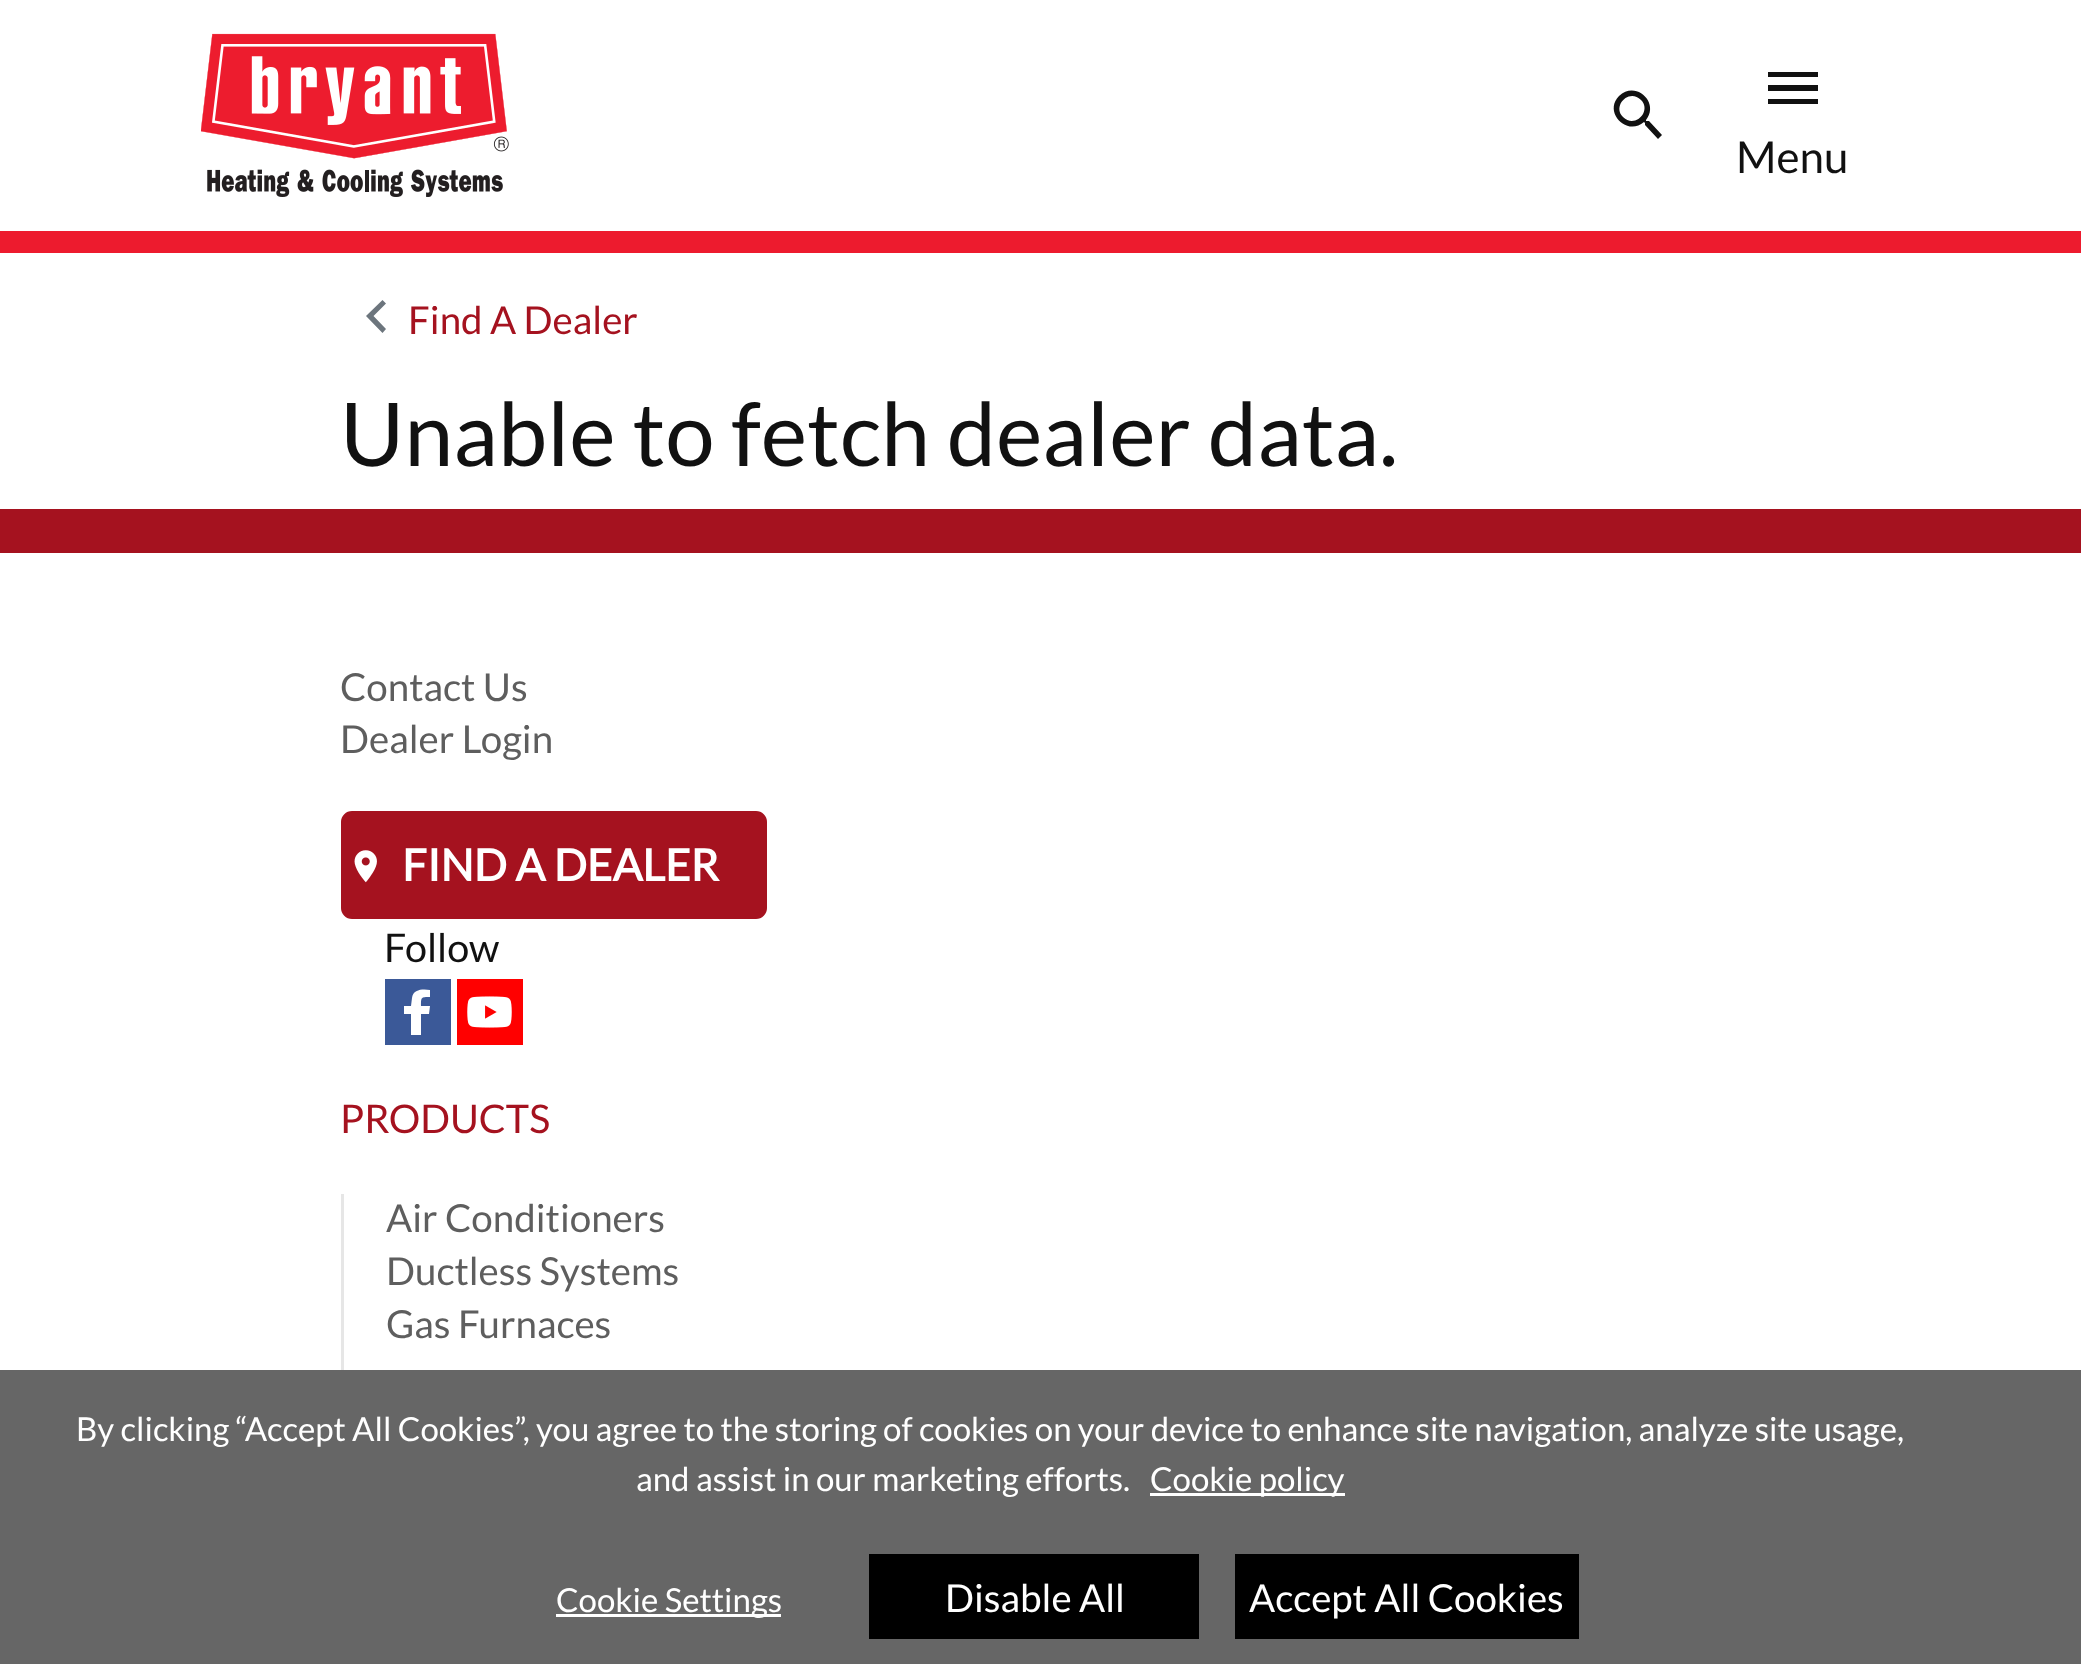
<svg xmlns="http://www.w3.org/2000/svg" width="2081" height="1664">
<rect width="100%" height="100%" fill="#fff"/>
<rect y="231" width="2081" height="22" fill="#ed1b2e"/>
<image x="201" y="33" width="308" height="164" href="media/1.png"/>
<path d="M1623 117c12 12 29-6 18-17c-12-12-29 6-18 17zm26 4l13 14l-4 4l-13-14v-2l-1-1c-17 15-41-10-25-26c17-16 41 7 27 24v1z" fill="#111"/>
<path d="M1768 72h50v5h-50zm0 19v-6h50v6zm0 13v-5h50v5z" fill="#111"/>
<text x="1736" y="173" style="font-family:Lato;font-size:44px;fill:#111">Menu</text>
<path d="M386 329l-3.5 4l-16.5-17l16.5-16l3.5 3.5l-12.5 12.5z" fill="#6c757d"/>
<text x="408" y="334" style="font-family:Lato;font-size:38.5px;fill:#a5121f">Find A Dealer</text>
<text x="340" y="466" style="font-family:Lato;font-size:88px;fill:#111">Unable to fetch dealer data.</text>
<rect y="509" width="2081" height="44" fill="#a5121f"/>
<text x="340" y="701" style="font-family:Lato;font-size:38.5px;fill:#5e5e5e">Contact Us</text>
<text x="340" y="753" style="font-family:Lato;font-size:38.5px;fill:#5e5e5e">Dealer Login</text>
<rect x="344" y="814" width="420" height="102" rx="8" fill="#a5121f" stroke="#a5121f" stroke-width="6"/>
<image x="354" y="850" width="23" height="33" href="media/2.png"/>
<text x="402" y="881" style="font-family:Lato;font-size:44px;font-weight:bold;fill:#fff">FIND A DEALER</text>
<text x="384" y="962" style="font-family:Lato;font-size:39.5px;fill:#111">Follow</text>
<rect x="385" y="979" width="66" height="66" fill="#3b5998"/>
<image x="457" y="979" width="66" height="66" href="media/3.png"/>
<path d="M430 990c-7-1-17-1-18 8l-1 8h-7v8h7v21h10v-21h8l1-8h-9c0-9 0-9 9-9z" fill="#fff" fill-rule="evenodd"/>
<text x="340" y="1133" style="font-family:Lato;font-size:39.5px;fill:#a5121f">PRODUCTS</text>
<rect x="341" y="1194" width="3" height="176" fill="#e6e6e6"/>
<text x="386" y="1232" style="font-family:Lato;font-size:38.5px;fill:#5e5e5e">Air Conditioners</text>
<text x="386" y="1285" style="font-family:Lato;font-size:38.5px;fill:#5e5e5e">Ductless Systems</text>
<text x="386" y="1338" style="font-family:Lato;font-size:38.5px;fill:#5e5e5e">Gas Furnaces</text>
<rect y="1370" width="2081" height="294" fill="#666"/>
<text x="76" y="1441" style="font-family:Lato;font-size:33px;fill:#fff">By clicking “Accept All Cookies”, you agree to the storing of cookies on your device to enhance site navigation, analyze site usage,</text>
<text x="636" y="1491" style="font-family:Lato;font-size:33px;fill:#fff">and assist in our marketing efforts.</text>
<rect x="1150" y="1493" width="195" height="3" fill="#fff"/>
<text x="1150" y="1491" style="font-family:Lato;font-size:33px;fill:#fff">Cookie policy</text>
<rect x="556" y="1614" width="225" height="3" fill="#fff"/>
<text x="556" y="1612" style="font-family:Lato;font-size:33px;fill:#fff">Cookie Settings</text>
<rect x="869" y="1554" width="330" height="85" fill="#000"/>
<text x="945" y="1612" style="font-family:Lato;font-size:38.5px;fill:#fff">Disable All</text>
<rect x="1235" y="1554" width="344" height="85" fill="#000"/>
<text x="1249" y="1612" style="font-family:Lato;font-size:38.5px;fill:#fff">Accept All Cookies</text>
</svg>
